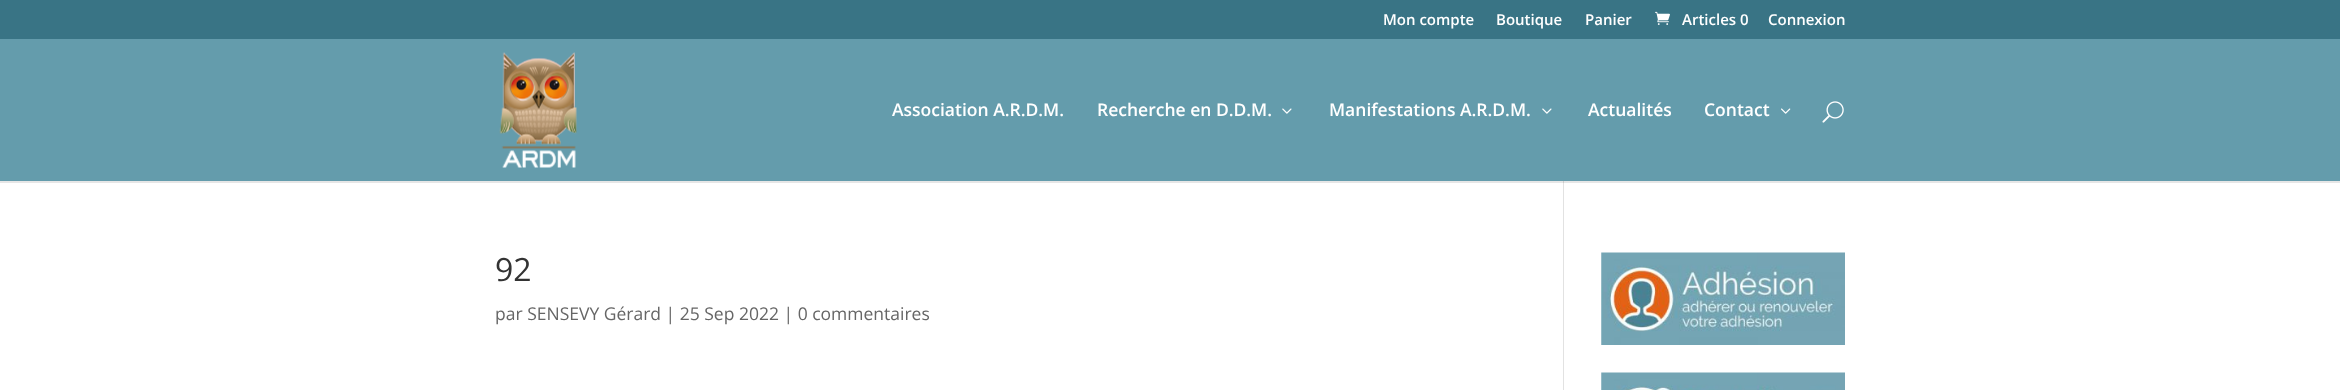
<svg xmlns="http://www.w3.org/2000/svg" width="2340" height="390">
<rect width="100%" height="100%" fill="#fff"/>
<rect width="2340" height="39" fill="#397485"/>
<text x="1383" y="25" style="font-family:Open Sans;font-size:15px;font-weight:600;fill:#fff">Mon compte</text>
<text x="1496" y="25" style="font-family:Open Sans;font-size:15px;font-weight:600;fill:#fff">Boutique</text>
<text x="1585" y="25" style="font-family:Open Sans;font-size:15px;font-weight:600;fill:#fff">Panier</text>
<image x="1655" y="11" width="15" height="14" href="media/1.png"/>
<text x="1682" y="25" style="font-family:Open Sans;font-size:15px;font-weight:600;fill:#fff">Articles 0</text>
<text x="1768" y="25" style="font-family:Open Sans;font-size:15px;font-weight:600;fill:#fff">Connexion</text>
<rect y="181" width="2340" height="2" fill="#e6e6e6"/>
<rect x="1563" y="180" width="1" height="210" fill="#e2e2e2"/>
<rect y="39" width="2340" height="142" fill="#649cac"/>
<image x="499" y="52" width="78" height="116" href="media/2.png"/>
<text x="892" y="116" style="font-family:Open Sans;font-size:17.5px;font-weight:600;fill:#fff">Association A.R.D.M.</text>
<text x="1097" y="116" style="font-family:Open Sans;font-size:17.5px;font-weight:600;fill:#fff">Recherche en D.D.M.</text>
<image x="1282" y="108" width="10" height="6" href="media/3.png"/>
<text x="1329" y="116" style="font-family:Open Sans;font-size:17.5px;font-weight:600;fill:#fff">Manifestations A.R.D.M.</text>
<image x="1542" y="108" width="10" height="6" href="media/3.png"/>
<text x="1588" y="116" style="font-family:Open Sans;font-size:17.5px;font-weight:600;fill:#fff">Actualités</text>
<text x="1704" y="116" style="font-family:Open Sans;font-size:17.5px;font-weight:600;fill:#fff">Contact</text>
<image x="1781" y="108" width="10" height="6" href="media/4.png"/>
<image x="1822" y="101" width="22" height="22" href="media/5.png"/>
<text x="495" y="281" style="font-family:Open Sans;font-size:32px;fill:#333">92</text>
<text x="495" y="320" style="font-family:Open Sans;font-size:17.5px;fill:#666">par SENSEVY Gérard | 25 Sep 2022 | 0 commentaires</text>
<image x="1601" y="252" width="244" height="93" href="media/6.png"/>
<image x="1601" y="372" width="244" height="18" href="media/7.png"/>
<rect x="1563" y="181" width="1" height="2" fill="#cbcbcb"/>
</svg>
